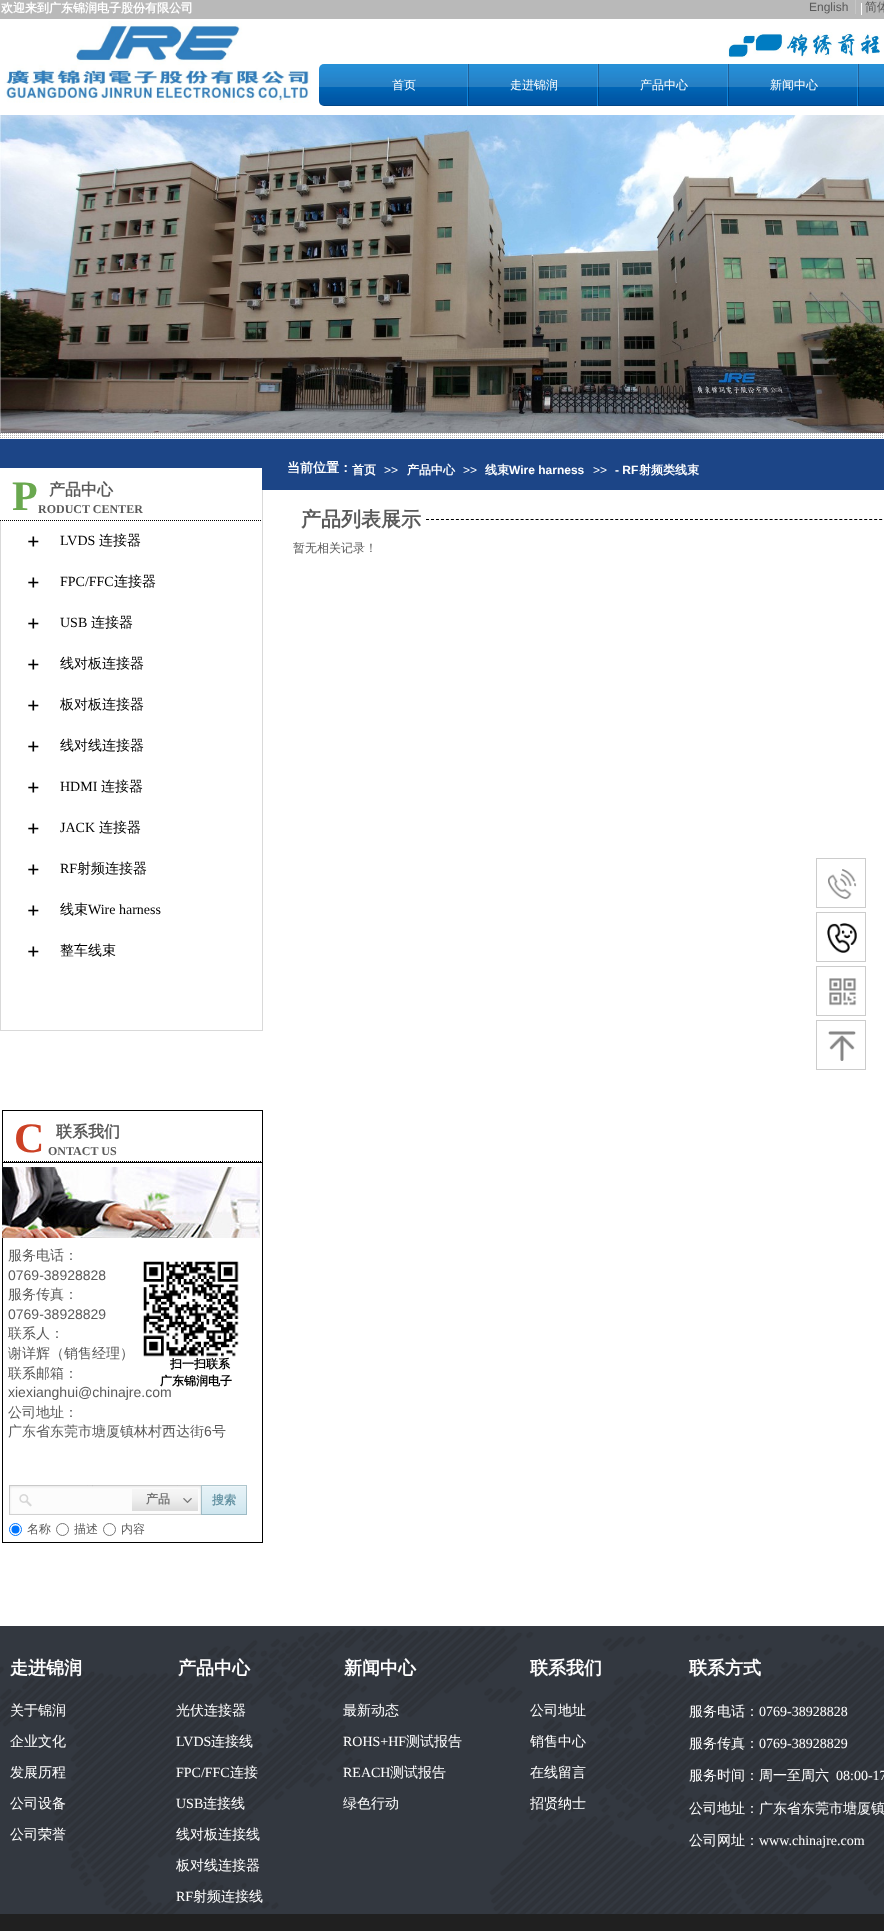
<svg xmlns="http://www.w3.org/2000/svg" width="884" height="1931">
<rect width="100%" height="100%" fill="#fff"/>
<rect width="884" height="19" fill="#b9b9b9"/>
<text x="1" y="12" style="font-family:WenQuanYi Zen Hei;font-size:12px;font-weight:bold;fill:#fff">欢迎来到广东锦润电子股份有限公司</text>
<rect x="855" width="1" height="14" fill="#c6c6c6"/>
<text x="809" y="11" style="font-family:Liberation Sans;font-size:12px;fill:#5a5a5a">English</text>
<text x="865" y="11" style="font-family:WenQuanYi Zen Hei;font-size:12px;font-weight:500;fill:#5a5a5a">简体</text>
<rect x="861" y="3" width="1" height="12" fill="#fff"/>
<image x="4" y="21" width="307" height="82" href="media/1.png"/>
<image x="727" y="32" width="153" height="26" href="media/2.png"/>
<image x="319" y="64" width="565" height="42" href="media/3.png"/>
<image x="467" y="64" width="2" height="42" href="media/4.png"/>
<text x="392" y="89" style="font-family:WenQuanYi Zen Hei;font-size:12px;font-weight:500;fill:#fff">首页</text>
<image x="597" y="64" width="2" height="42" href="media/4.png"/>
<text x="510" y="89" style="font-family:WenQuanYi Zen Hei;font-size:12px;font-weight:500;fill:#fff">走进锦润</text>
<image x="727" y="64" width="2" height="42" href="media/4.png"/>
<text x="640" y="89" style="font-family:WenQuanYi Zen Hei;font-size:12px;font-weight:500;fill:#fff">产品中心</text>
<image x="857" y="64" width="2" height="42" href="media/4.png"/>
<text x="770" y="89" style="font-family:WenQuanYi Zen Hei;font-size:12px;font-weight:500;fill:#fff">新闻中心</text>
<image x="0" y="115" width="884" height="318" href="media/5.png"/>
<rect y="439" width="884" height="51" fill="#1c4587"/>
<image x="0" y="433" width="883" height="5" href="media/6.png"/>
<text x="287" y="472" style="font-family:WenQuanYi Zen Hei;font-size:13px;font-weight:bold;fill:#fff">当前位置：</text>
<text x="352" y="474" style="font-family:WenQuanYi Zen Hei;font-size:12px;font-weight:bold;fill:#fff">首页</text>
<text x="384" y="474" style="font-family:Liberation Sans;font-size:12px;fill:#fff">&gt;&gt;</text>
<text x="407" y="474" style="font-family:WenQuanYi Zen Hei;font-size:12px;font-weight:bold;fill:#fff">产品中心</text>
<text x="463" y="474" style="font-family:Liberation Sans;font-size:12px;fill:#fff">&gt;&gt;</text>
<text x="485" y="474" style="font-family:WenQuanYi Zen Hei;font-size:12px;font-weight:bold;fill:#fff">线束</text>
<text x="509" y="474" style="font-family:Liberation Sans;font-size:12px;font-weight:bold;fill:#fff">Wire harness</text>
<text x="593" y="474" style="font-family:Liberation Sans;font-size:12px;fill:#fff">&gt;&gt;</text>
<text x="615" y="474" style="font-family:Liberation Sans;font-size:12px;font-weight:bold;fill:#fff">- RF</text>
<text x="639" y="474" style="font-family:WenQuanYi Zen Hei;font-size:12px;font-weight:bold;fill:#fff">射频类线束</text>
<rect x="262" y="490" width="1" height="541" fill="#d9d9d9"/>
<rect y="1030" width="263" height="1" fill="#d9d9d9"/>
<rect y="521" width="1" height="510" fill="#d9d9d9"/>
<rect y="468" width="262" height="22" fill="#fff"/>
<path d="M0 520.5h262" fill="none" stroke="#000" stroke-dasharray="1 1"/>
<text x="12" y="510" style="font-family:Liberation Serif;font-size:42px;font-weight:bold;fill:#6aa84f">P</text>
<text x="49" y="495" style="font-family:WenQuanYi Zen Hei;font-size:16px;font-weight:bold;fill:#5a5a5a">产品中心</text>
<text x="38" y="513" style="font-family:Liberation Serif;font-size:12px;font-weight:bold;fill:#5a5a5a">RODUCT CENTER</text>
<image x="28" y="536" width="11" height="11" href="media/7.png"/>
<text x="60" y="545" style="font-family:Liberation Serif;font-size:14px;fill:#000">LVDS</text>
<text x="99" y="545" style="font-family:WenQuanYi Zen Hei;font-size:14px;font-weight:500;fill:#000">连接器</text>
<image x="28" y="577" width="11" height="11" href="media/7.png"/>
<text x="60" y="586" style="font-family:Liberation Serif;font-size:14px;fill:#000">FPC/FFC</text>
<text x="114" y="586" style="font-family:WenQuanYi Zen Hei;font-size:14px;font-weight:500;fill:#000">连接器</text>
<image x="28" y="618" width="11" height="11" href="media/7.png"/>
<text x="60" y="627" style="font-family:Liberation Serif;font-size:14px;fill:#000">USB</text>
<text x="91" y="627" style="font-family:WenQuanYi Zen Hei;font-size:14px;font-weight:500;fill:#000">连接器</text>
<image x="28" y="659" width="11" height="11" href="media/7.png"/>
<text x="60" y="668" style="font-family:WenQuanYi Zen Hei;font-size:14px;font-weight:500;fill:#000">线对板连接器</text>
<image x="28" y="700" width="11" height="11" href="media/7.png"/>
<text x="60" y="709" style="font-family:WenQuanYi Zen Hei;font-size:14px;font-weight:500;fill:#000">板对板连接器</text>
<image x="28" y="741" width="11" height="11" href="media/7.png"/>
<text x="60" y="750" style="font-family:WenQuanYi Zen Hei;font-size:14px;font-weight:500;fill:#000">线对线连接器</text>
<image x="28" y="782" width="11" height="11" href="media/7.png"/>
<text x="60" y="791" style="font-family:Liberation Serif;font-size:14px;fill:#000">HDMI</text>
<text x="101" y="791" style="font-family:WenQuanYi Zen Hei;font-size:14px;font-weight:500;fill:#000">连接器</text>
<image x="28" y="823" width="11" height="11" href="media/7.png"/>
<text x="60" y="832" style="font-family:Liberation Serif;font-size:14px;fill:#000">JACK</text>
<text x="99" y="832" style="font-family:WenQuanYi Zen Hei;font-size:14px;font-weight:500;fill:#000">连接器</text>
<image x="28" y="864" width="11" height="11" href="media/8.png"/>
<text x="60" y="873" style="font-family:Liberation Serif;font-size:14px;fill:#000">RF</text>
<text x="77" y="873" style="font-family:WenQuanYi Zen Hei;font-size:14px;font-weight:500;fill:#000">射频连接器</text>
<image x="28" y="905" width="11" height="11" href="media/7.png"/>
<text x="60" y="914" style="font-family:WenQuanYi Zen Hei;font-size:14px;font-weight:500;fill:#000">线束</text>
<text x="88" y="914" style="font-family:Liberation Serif;font-size:14px;fill:#000">Wire harness</text>
<image x="28" y="946" width="11" height="11" href="media/7.png"/>
<text x="60" y="955" style="font-family:WenQuanYi Zen Hei;font-size:14px;font-weight:500;fill:#000">整车线束</text>
<text x="301" y="526" style="font-family:WenQuanYi Zen Hei;font-size:20px;font-weight:bold;fill:#5a5a5a">产品列表展示</text>
<path d="M426 519.5h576" fill="none" stroke="#000" stroke-dasharray="3 1.98"/>
<text x="293" y="552" style="font-family:WenQuanYi Zen Hei;font-size:12px;font-weight:500;fill:#5a5a5a">暂无相关记录！</text>
<rect x="2" y="1110" width="261" height="1" fill="#000"/>
<rect x="262" y="1110" width="1" height="52" fill="#000"/>
<path d="M2 1161.5h261" fill="none" stroke="#000" stroke-dasharray="1 1"/>
<rect x="2" y="1110" width="1" height="52" fill="#000"/>
<text x="14" y="1152" style="font-family:Liberation Serif;font-size:42px;font-weight:bold;fill:#cc4125">C</text>
<text x="56" y="1137" style="font-family:WenQuanYi Zen Hei;font-size:16px;font-weight:bold;fill:#5a5a5a">联系我们</text>
<text x="48" y="1155" style="font-family:Liberation Serif;font-size:12px;font-weight:bold;fill:#5a5a5a">ONTACT US</text>
<rect x="2.5" y="1162.5" width="260" height="380" fill="none" stroke="#000"/>
<image x="2" y="1167" width="258" height="71" href="media/9.png"/>
<text x="8" y="1260" style="font-family:WenQuanYi Zen Hei;font-size:14px;font-weight:500;fill:#5a5a5a">服务电话：</text>
<text x="8" y="1280" style="font-family:Liberation Sans;font-size:14px;fill:#5a5a5a">0769-38928828</text>
<text x="8" y="1299" style="font-family:WenQuanYi Zen Hei;font-size:14px;font-weight:500;fill:#5a5a5a">服务传真：</text>
<text x="8" y="1319" style="font-family:Liberation Sans;font-size:14px;fill:#5a5a5a">0769-38928829</text>
<text x="8" y="1338" style="font-family:WenQuanYi Zen Hei;font-size:14px;font-weight:500;fill:#5a5a5a">联系人：</text>
<text x="8" y="1358" style="font-family:WenQuanYi Zen Hei;font-size:14px;font-weight:500;fill:#5a5a5a">谢详辉（销售经理）</text>
<text x="8" y="1378" style="font-family:WenQuanYi Zen Hei;font-size:14px;font-weight:500;fill:#5a5a5a">联系邮箱：</text>
<text x="8" y="1397" style="font-family:Liberation Sans;font-size:14px;fill:#5a5a5a">xiexianghui@chinajre.com</text>
<text x="8" y="1417" style="font-family:WenQuanYi Zen Hei;font-size:14px;font-weight:500;fill:#5a5a5a">公司地址：</text>
<text x="8" y="1436" style="font-family:WenQuanYi Zen Hei;font-size:14px;font-weight:500;fill:#5a5a5a">广东省东莞市塘厦镇林村西达街</text>
<text x="204" y="1436" style="font-family:Liberation Sans;font-size:14px;fill:#5a5a5a">6</text>
<text x="212" y="1436" style="font-family:WenQuanYi Zen Hei;font-size:14px;font-weight:500;fill:#5a5a5a">号</text>
<image x="143" y="1261" width="96" height="96" href="media/10.png"/>
<text x="170" y="1368" style="font-family:WenQuanYi Zen Hei;font-size:12px;font-weight:bold;fill:#000">扫一扫联系</text>
<text x="160" y="1385" style="font-family:WenQuanYi Zen Hei;font-size:12px;font-weight:bold;fill:#000">广东锦润电子</text>
<image x="9" y="1485" width="25" height="30" href="media/11.png"/>
<image x="34" y="1485" width="167" height="30" href="media/12.png"/>
<image x="132" y="1489" width="2" height="22" href="media/13.png"/>
<image x="134" y="1489" width="48" height="22" href="media/14.png"/>
<text x="146" y="1503" style="font-family:WenQuanYi Zen Hei;font-size:12px;font-weight:bold;fill:#747474">产品</text>
<image x="182" y="1485" width="19" height="29" href="media/15.png"/>
<image x="201" y="1485" width="1" height="30" href="media/16.png"/>
<image x="202" y="1485" width="44" height="30" href="media/17.png"/>
<text x="212" y="1504" style="font-family:WenQuanYi Zen Hei;font-size:12px;font-weight:bold;fill:#6694a4">搜索</text>
<image x="246" y="1485" width="1" height="30" href="media/16.png"/>
<circle cx="15.5" cy="1529.5" r="6" fill="none" stroke="#0075ff"/>
<circle cx="15.5" cy="1529.5" r="4" fill="#0075ff"/>
<text x="27" y="1533" style="font-family:WenQuanYi Zen Hei;font-size:12px;font-weight:500;fill:#5a5a5a">名称</text>
<circle cx="62.5" cy="1529.5" r="6" fill="none" stroke="#767676"/>
<text x="74" y="1533" style="font-family:WenQuanYi Zen Hei;font-size:12px;font-weight:500;fill:#5a5a5a">描述</text>
<circle cx="109.5" cy="1529.5" r="6" fill="none" stroke="#767676"/>
<text x="121" y="1533" style="font-family:WenQuanYi Zen Hei;font-size:12px;font-weight:500;fill:#5a5a5a">内容</text>
<image x="0" y="1626" width="884" height="305" href="media/18.png"/>
<image x="0" y="1627" width="884" height="287" href="media/19.png"/>
<text x="10" y="1674" style="font-family:WenQuanYi Zen Hei;font-size:18px;font-weight:bold;fill:#fff">走进锦润</text>
<text x="178" y="1674" style="font-family:WenQuanYi Zen Hei;font-size:18px;font-weight:bold;fill:#fff">产品中心</text>
<text x="344" y="1674" style="font-family:WenQuanYi Zen Hei;font-size:18px;font-weight:bold;fill:#fff">新闻中心</text>
<text x="530" y="1674" style="font-family:WenQuanYi Zen Hei;font-size:18px;font-weight:bold;fill:#fff">联系我们</text>
<text x="689" y="1674" style="font-family:WenQuanYi Zen Hei;font-size:18px;font-weight:bold;fill:#fff">联系方式</text>
<text x="10" y="1715" style="font-family:WenQuanYi Zen Hei;font-size:14px;font-weight:500;fill:#fff">关于锦润</text>
<text x="10" y="1746" style="font-family:WenQuanYi Zen Hei;font-size:14px;font-weight:500;fill:#fff">企业文化</text>
<text x="10" y="1777" style="font-family:WenQuanYi Zen Hei;font-size:14px;font-weight:500;fill:#fff">发展历程</text>
<text x="10" y="1808" style="font-family:WenQuanYi Zen Hei;font-size:14px;font-weight:500;fill:#fff">公司设备</text>
<text x="10" y="1839" style="font-family:WenQuanYi Zen Hei;font-size:14px;font-weight:500;fill:#fff">公司荣誉</text>
<text x="176" y="1715" style="font-family:WenQuanYi Zen Hei;font-size:14px;font-weight:500;fill:#fff">光伏连接器</text>
<text x="176" y="1746" style="font-family:Liberation Serif;font-size:14px;fill:#fff">LVDS</text>
<text x="211" y="1746" style="font-family:WenQuanYi Zen Hei;font-size:14px;font-weight:500;fill:#fff">连接线</text>
<text x="176" y="1777" style="font-family:Liberation Serif;font-size:14px;fill:#fff">FPC/FFC</text>
<text x="230" y="1777" style="font-family:WenQuanYi Zen Hei;font-size:14px;font-weight:500;fill:#fff">连接</text>
<text x="176" y="1808" style="font-family:Liberation Serif;font-size:14px;fill:#fff">USB</text>
<text x="203" y="1808" style="font-family:WenQuanYi Zen Hei;font-size:14px;font-weight:500;fill:#fff">连接线</text>
<text x="176" y="1839" style="font-family:WenQuanYi Zen Hei;font-size:14px;font-weight:500;fill:#fff">线对板连接线</text>
<text x="176" y="1870" style="font-family:WenQuanYi Zen Hei;font-size:14px;font-weight:500;fill:#fff">板对线连接器</text>
<text x="176" y="1901" style="font-family:Liberation Serif;font-size:14px;fill:#fff">RF</text>
<text x="193" y="1901" style="font-family:WenQuanYi Zen Hei;font-size:14px;font-weight:500;fill:#fff">射频连接线</text>
<text x="343" y="1715" style="font-family:WenQuanYi Zen Hei;font-size:14px;font-weight:500;fill:#fff">最新动态</text>
<text x="343" y="1746" style="font-family:Liberation Serif;font-size:14px;fill:#fff">ROHS+HF</text>
<text x="406" y="1746" style="font-family:WenQuanYi Zen Hei;font-size:14px;font-weight:500;fill:#fff">测试报告</text>
<text x="343" y="1777" style="font-family:Liberation Serif;font-size:14px;fill:#fff">REACH</text>
<text x="390" y="1777" style="font-family:WenQuanYi Zen Hei;font-size:14px;font-weight:500;fill:#fff">测试报告</text>
<text x="343" y="1808" style="font-family:WenQuanYi Zen Hei;font-size:14px;font-weight:500;fill:#fff">绿色行动</text>
<text x="530" y="1715" style="font-family:WenQuanYi Zen Hei;font-size:14px;font-weight:500;fill:#fff">公司地址</text>
<text x="530" y="1746" style="font-family:WenQuanYi Zen Hei;font-size:14px;font-weight:500;fill:#fff">销售中心</text>
<text x="530" y="1777" style="font-family:WenQuanYi Zen Hei;font-size:14px;font-weight:500;fill:#fff">在线留言</text>
<text x="530" y="1808" style="font-family:WenQuanYi Zen Hei;font-size:14px;font-weight:500;fill:#fff">招贤纳士</text>
<text x="689" y="1716" style="font-family:WenQuanYi Zen Hei;font-size:14px;font-weight:500;fill:#fff">服务电话：</text>
<text x="759" y="1716" style="font-family:Liberation Serif;font-size:14px;fill:#fff">0769-38928828</text>
<text x="689" y="1748" style="font-family:WenQuanYi Zen Hei;font-size:14px;font-weight:500;fill:#fff">服务传真：</text>
<text x="759" y="1748" style="font-family:Liberation Serif;font-size:14px;fill:#fff">0769-38928829</text>
<text x="689" y="1780" style="font-family:WenQuanYi Zen Hei;font-size:14px;font-weight:500;fill:#fff">服务时间：周一至周六</text>
<text x="836" y="1780" style="font-family:Liberation Serif;font-size:14px;fill:#fff">08:00-17</text>
<text x="689" y="1813" style="font-family:WenQuanYi Zen Hei;font-size:14px;font-weight:500;fill:#fff">公司地址：广东省东莞市塘厦镇</text>
<text x="689" y="1845" style="font-family:WenQuanYi Zen Hei;font-size:14px;font-weight:500;fill:#fff">公司网址：</text>
<text x="759" y="1845" style="font-family:Liberation Serif;font-size:14px;fill:#fff">www.chinajre.com</text>
<rect x="816.5" y="858.5" width="49" height="49" fill="none" stroke="#ccc"/>
<image x="828" y="869" width="29" height="30" href="media/20.png"/>
<rect x="816.5" y="912.5" width="49" height="49" fill="none" stroke="#ccc"/>
<image x="827" y="923" width="30" height="30" href="media/21.png"/>
<rect x="816.5" y="966.5" width="49" height="49" fill="none" stroke="#ccc"/>
<image x="829" y="978" width="28" height="28" href="media/22.png"/>
<rect x="816.5" y="1020.5" width="49" height="49" fill="none" stroke="#ccc"/>
<image x="828" y="1031" width="28" height="30" href="media/23.png"/>
</svg>
